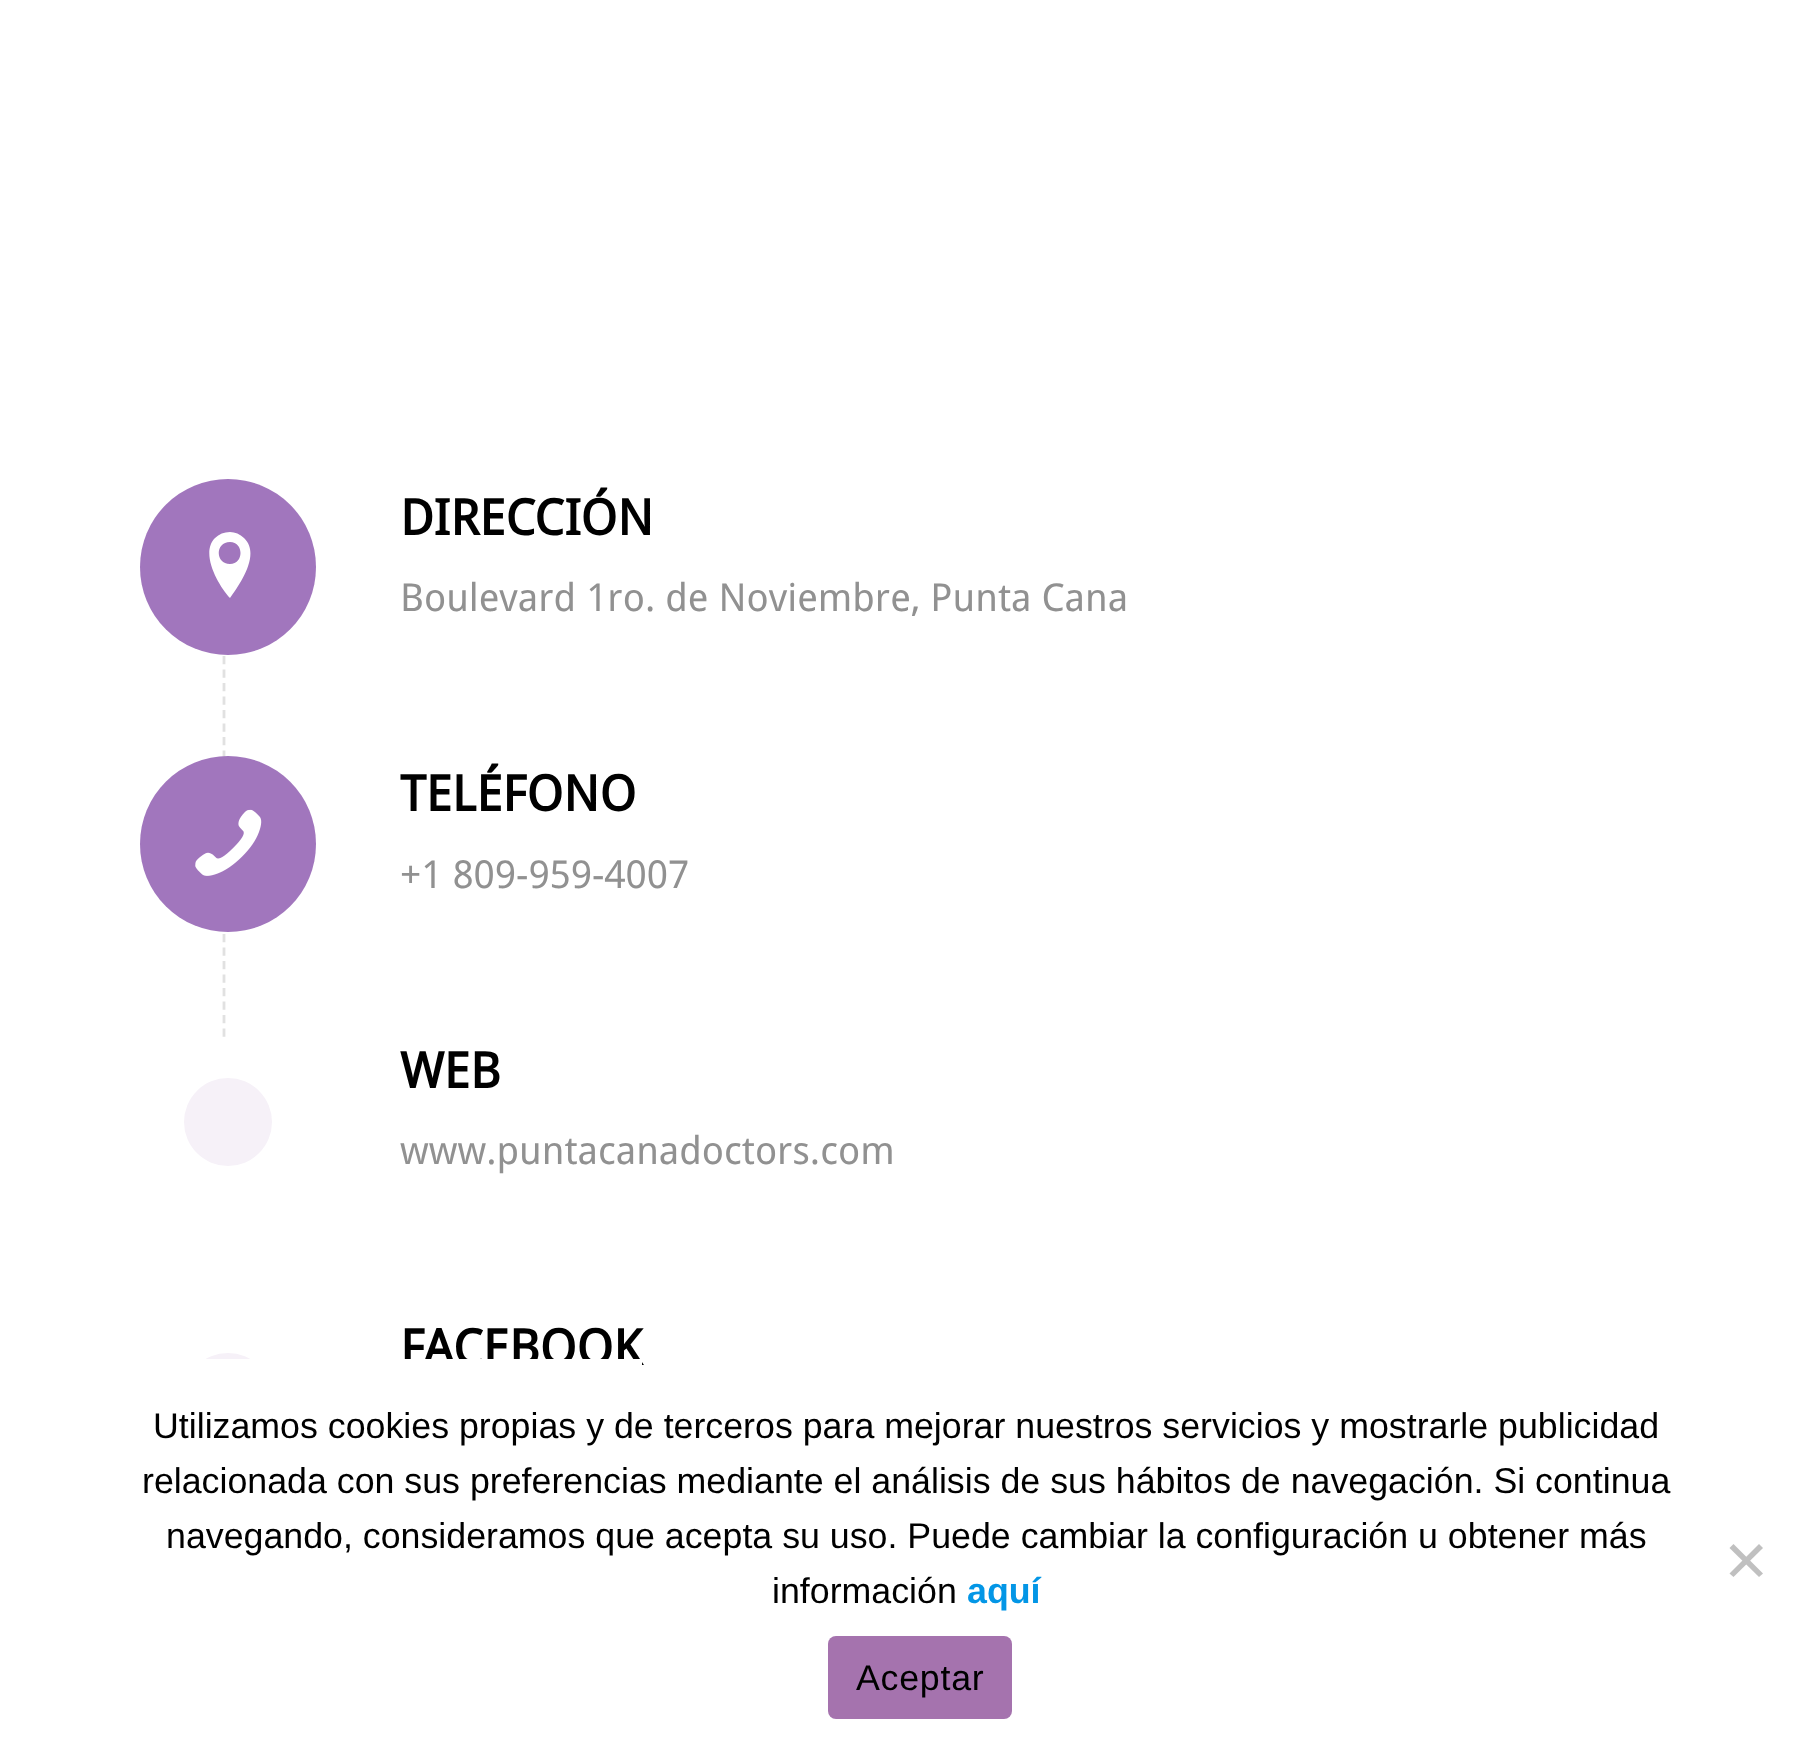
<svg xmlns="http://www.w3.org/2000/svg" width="1811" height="1758">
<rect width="100%" height="100%" fill="#fff"/>
<path d="M224 481v278" fill="none" stroke="#e1e1e1" stroke-width="2.8" stroke-dasharray="8.25 5.22"/>
<circle cx="228" cy="567" r="88" fill="#a176bd"/>
<path d="M230 532c5 0 10 2 14 6c17 16-4 46-14 60c-12-13-30-45-15-60c4-4 9-6 15-6zm0 32c14 0 14-22 0-22c-15 0-15 22 0 22z" fill="#fff"/>
<text x="400" y="535" style="font-family:Droid Sans;font-size:49.5px;font-weight:bold;fill:#000">DIRECCIÓN</text>
<text x="400" y="611" style="font-family:Droid Sans;font-size:38.5px;fill:#919191">Boulevard 1ro. de Noviembre, Punta Cana</text>
<path d="M224 759v278" fill="none" stroke="#e1e1e1" stroke-width="2.8" stroke-dasharray="8.25 5.22"/>
<circle cx="228" cy="844" r="88" fill="#a176bd"/>
<image x="195" y="809" width="67" height="67" href="media/1.png"/>
<text x="400" y="811" style="font-family:Droid Sans;font-size:49.5px;font-weight:bold;fill:#000">TELÉFONO</text>
<text x="400" y="888" style="font-family:Droid Sans;font-size:38.5px;fill:#919191">+1 809-959-4007</text>
<circle cx="228" cy="1122" r="44" fill="#f6f1f8"/>
<text x="400" y="1088" style="font-family:Droid Sans;font-size:49.5px;font-weight:bold;fill:#000">WEB</text>
<text x="400" y="1164" style="font-family:Droid Sans;font-size:38.5px;fill:#919191">www.puntacanadoctors.com</text>
<text x="400" y="1365" style="font-family:Droid Sans;font-size:49.5px;font-weight:bold;fill:#000">FACEBOOK</text>
<circle cx="228" cy="1397" r="44" fill="#f6f1f8"/>
<rect x="184" y="1359" width="458" height="82" fill="#fff"/>
<text x="153" y="1438" style="font-family:Liberation Sans;font-size:35.75px;fill:#000">Utilizamos cookies propias y de terceros para mejorar nuestros servicios y mostrarle publicidad</text>
<text x="142" y="1493" style="font-family:Liberation Sans;font-size:35.75px;fill:#000">relacionada con sus preferencias mediante el análisis de sus hábitos de navegación. Si continua</text>
<text x="166" y="1548" style="font-family:Liberation Sans;font-size:35.75px;fill:#000">navegando, consideramos que acepta su uso. Puede cambiar la configuración u obtener más</text>
<text x="772" y="1603" style="font-family:Liberation Sans;font-size:35.75px;fill:#000">información</text>
<text x="967" y="1603" style="font-family:Liberation Sans;font-size:35.75px;font-weight:bold;fill:#0396e6">aquí</text>
<path d="M1759 1544l4 4l-29.5 29l-4-3.5z" fill="#c0c0c0"/>
<path d="M1729.5 1548l4-4l29.5 29.5l-4 3.5z" fill="#c0c0c0"/>
<rect x="828" y="1636" width="184" height="83" rx="8" fill="#a573ae"/>
<text x="856" y="1690" style="font-family:Liberation Sans;font-size:35.75px;letter-spacing:0.75px;fill:#000">Aceptar</text>
</svg>
